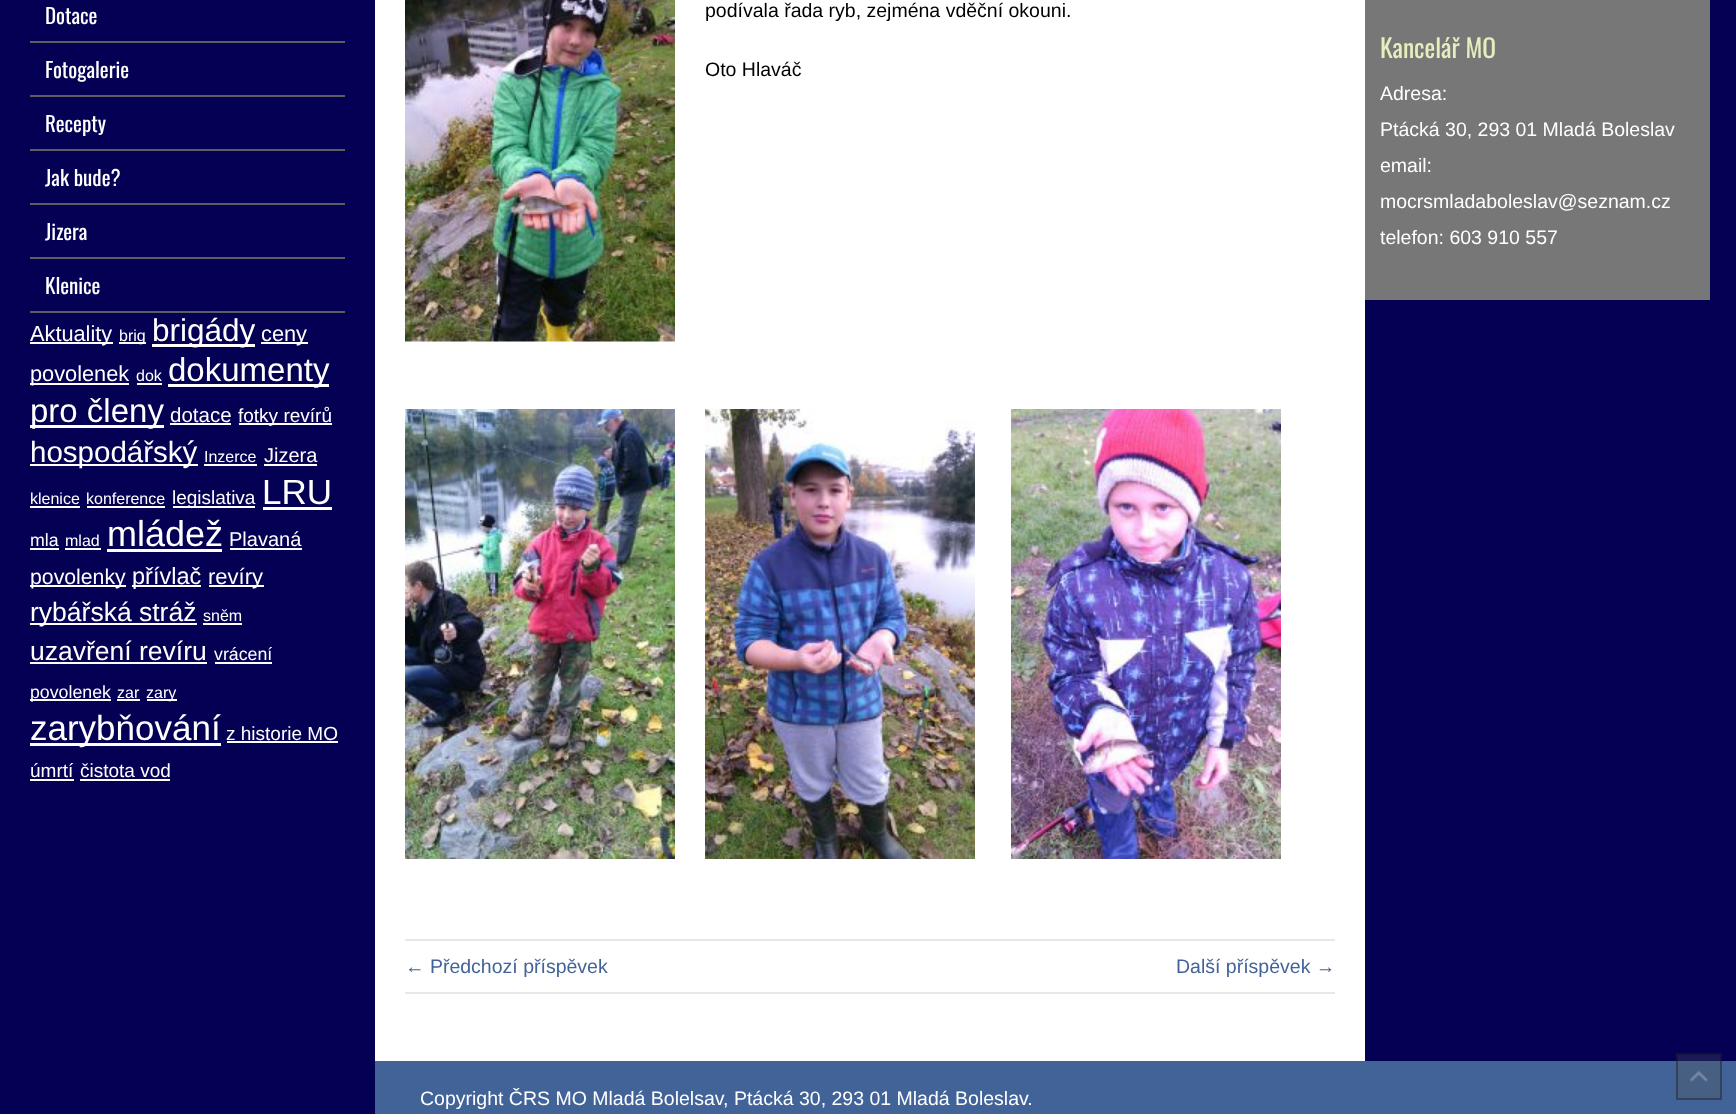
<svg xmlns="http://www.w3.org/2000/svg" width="1736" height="1114">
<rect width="100%" height="100%" fill="#040054"/>
<rect x="1676" y="1053" width="46" height="8" fill="#1c1a54"/>
<rect x="30" y="41" width="315" height="2" fill="#5e5e5e"/>
<text x="45" y="24" style="font-family:Oswald;font-size:21px;fill:#fff">Dotace</text>
<rect x="30" y="95" width="315" height="2" fill="#5e5e5e"/>
<text x="45" y="78" style="font-family:Oswald;font-size:21px;fill:#fff">Fotogalerie</text>
<rect x="30" y="149" width="315" height="2" fill="#5e5e5e"/>
<text x="45" y="132" style="font-family:Oswald;font-size:21px;fill:#fff">Recepty</text>
<rect x="30" y="203" width="315" height="2" fill="#5e5e5e"/>
<text x="45" y="186" style="font-family:Oswald;font-size:21px;fill:#fff">Jak bude?</text>
<rect x="30" y="257" width="315" height="2" fill="#5e5e5e"/>
<text x="45" y="240" style="font-family:Oswald;font-size:21px;fill:#fff">Jizera</text>
<rect x="30" y="311" width="315" height="2" fill="#5e5e5e"/>
<text x="45" y="294" style="font-family:Oswald;font-size:21px;fill:#fff">Klenice</text>
<rect x="30" y="342" width="83" height="2" fill="#fff"/>
<text x="30" y="341" style="font-family:Liberation Sans;font-size:21.75px;fill:#fff">Aktuality</text>
<rect x="119" y="342" width="27" height="2" fill="#fff"/>
<text x="119" y="341" style="font-family:Liberation Sans;font-size:16px;fill:#fff">brig</text>
<rect x="152" y="344" width="103" height="3" fill="#fff"/>
<text x="152" y="341" style="font-family:Liberation Sans;font-size:31.5px;fill:#fff">brigády</text>
<rect x="261" y="342" width="47" height="2" fill="#fff"/>
<text x="261" y="341" style="font-family:Liberation Sans;font-size:21.75px;fill:#fff">ceny</text>
<rect x="30" y="383" width="99" height="2" fill="#fff"/>
<text x="30" y="381" style="font-family:Liberation Sans;font-size:21.75px;fill:#fff">povolenek</text>
<text x="136" y="381" style="font-family:Liberation Sans;font-size:16px;fill:#fff">dok</text>
<rect x="137" y="383" width="25" height="2" fill="#fff"/>
<rect x="168" y="384" width="161" height="3" fill="#fff"/>
<text x="168" y="381" style="font-family:Liberation Sans;font-size:33px;fill:#fff">dokumenty</text>
<rect x="30" y="425" width="134" height="3" fill="#fff"/>
<text x="30" y="422" style="font-family:Liberation Sans;font-size:33px;fill:#fff">pro členy</text>
<text x="170" y="422" style="font-family:Liberation Sans;font-size:20.5px;fill:#fff">dotace</text>
<rect x="170" y="423" width="61" height="2" fill="#fff"/>
<rect x="239" y="423" width="93" height="2" fill="#fff"/>
<text x="238" y="422" style="font-family:Liberation Sans;font-size:19px;fill:#fff">fotky revírů</text>
<rect x="30" y="464" width="168" height="2" fill="#fff"/>
<text x="30" y="462" style="font-family:Liberation Sans;font-size:29.5px;fill:#fff">hospodářský</text>
<text x="204" y="462" style="font-family:Liberation Sans;font-size:16px;fill:#fff">Inzerce</text>
<rect x="204" y="464" width="53" height="2" fill="#fff"/>
<text x="264" y="462" style="font-family:Liberation Sans;font-size:20px;fill:#fff">Jizera</text>
<rect x="264" y="464" width="53" height="2" fill="#fff"/>
<text x="30" y="504" style="font-family:Liberation Sans;font-size:16px;fill:#fff">klenice</text>
<rect x="30" y="506" width="50" height="2" fill="#fff"/>
<text x="86" y="504" style="font-family:Liberation Sans;font-size:16px;fill:#fff">konference</text>
<rect x="87" y="506" width="78" height="2" fill="#fff"/>
<rect x="173" y="506" width="82" height="2" fill="#fff"/>
<text x="172" y="504" style="font-family:Liberation Sans;font-size:19px;fill:#fff">legislativa</text>
<text x="262" y="504" style="font-family:Liberation Sans;font-size:35px;fill:#fff">LRU</text>
<rect x="263" y="507" width="69" height="3" fill="#fff"/>
<text x="30" y="546" style="font-family:Liberation Sans;font-size:17.75px;fill:#fff">mla</text>
<rect x="30" y="548" width="29" height="2" fill="#fff"/>
<text x="65" y="546" style="font-family:Liberation Sans;font-size:16px;fill:#fff">mlad</text>
<rect x="65" y="548" width="36" height="2" fill="#fff"/>
<text x="107" y="546" style="font-family:Liberation Sans;font-size:36px;fill:#fff">mládež</text>
<rect x="107" y="549" width="115" height="3" fill="#fff"/>
<text x="229" y="546" style="font-family:Liberation Sans;font-size:20px;fill:#fff">Plavaná</text>
<rect x="230" y="548" width="72" height="2" fill="#fff"/>
<rect x="30" y="585" width="96" height="2" fill="#fff"/>
<text x="30" y="584" style="font-family:Liberation Sans;font-size:21.25px;fill:#fff">povolenky</text>
<rect x="132" y="585" width="69" height="2" fill="#fff"/>
<text x="132" y="584" style="font-family:Liberation Sans;font-size:23.5px;fill:#fff">přívlač</text>
<rect x="209" y="585" width="55" height="2" fill="#fff"/>
<text x="208" y="584" style="font-family:Liberation Sans;font-size:22px;fill:#fff">revíry</text>
<rect x="30" y="623" width="167" height="2" fill="#fff"/>
<text x="30" y="621" style="font-family:Liberation Sans;font-size:26.5px;fill:#fff">rybářská stráž</text>
<text x="203" y="621" style="font-family:Liberation Sans;font-size:16px;fill:#fff">sněm</text>
<rect x="203" y="623" width="39" height="2" fill="#fff"/>
<text x="30" y="660" style="font-family:Liberation Sans;font-size:26.5px;fill:#fff">uzavření revíru</text>
<rect x="30" y="662" width="177" height="2" fill="#fff"/>
<text x="214" y="660" style="font-family:Liberation Sans;font-size:17.75px;fill:#fff">vrácení</text>
<rect x="215" y="662" width="57" height="2" fill="#fff"/>
<rect x="30" y="699" width="81" height="2" fill="#fff"/>
<text x="30" y="698" style="font-family:Liberation Sans;font-size:17.75px;fill:#fff">povolenek</text>
<text x="117" y="698" style="font-family:Liberation Sans;font-size:16px;fill:#fff">zar</text>
<rect x="117" y="699" width="23" height="2" fill="#fff"/>
<rect x="147" y="699" width="30" height="2" fill="#fff"/>
<text x="146" y="698" style="font-family:Liberation Sans;font-size:16px;fill:#fff">zary</text>
<rect x="30" y="743" width="191" height="3" fill="#fff"/>
<text x="30" y="740" style="font-family:Liberation Sans;font-size:35px;fill:#fff">zarybňování</text>
<text x="226" y="740" style="font-family:Liberation Sans;font-size:19px;fill:#fff">z historie MO</text>
<rect x="227" y="741" width="111" height="2" fill="#fff"/>
<text x="30" y="777" style="font-family:Liberation Sans;font-size:19px;fill:#fff">úmrtí</text>
<rect x="30" y="779" width="44" height="2" fill="#fff"/>
<text x="80" y="777" style="font-family:Liberation Sans;font-size:19px;fill:#fff">čistota vod</text>
<rect x="80" y="779" width="90" height="2" fill="#fff"/>
<rect x="375" width="990" height="1061" fill="#fff"/>
<image x="405" y="0" width="270" height="342" href="media/1.png"/>
<text x="705" y="17" style="font-family:Liberation Sans;font-size:19.5px;fill:#000">podívala řada ryb, zejména vděční okouni.</text>
<text x="705" y="76" style="font-family:Liberation Sans;font-size:19.5px;fill:#000">Oto Hlaváč</text>
<image x="405" y="409" width="270" height="450" href="media/2.png"/>
<image x="705" y="409" width="270" height="450" href="media/3.png"/>
<image x="1011" y="409" width="270" height="450" href="media/4.png"/>
<rect x="405" y="939" width="930" height="2" fill="#e8e8e8"/>
<rect x="405" y="992" width="930" height="2" fill="#e8e8e8"/>
<text x="405" y="973" style="font-family:Liberation Sans;font-size:19.5px;fill:#426398">← Předchozí příspěvek</text>
<text x="1176" y="973" style="font-family:Liberation Sans;font-size:19.5px;fill:#426398">Další příspěvek →</text>
<rect x="1365" width="345" height="300" fill="#777"/>
<text x="1380" y="58" style="font-family:Oswald;font-size:25.5px;fill:#e4efbd">Kancelář MO</text>
<text x="1380" y="100" style="font-family:Liberation Sans;font-size:19.5px;fill:#fff">Adresa:</text>
<text x="1380" y="136" style="font-family:Liberation Sans;font-size:19.5px;fill:#fff">Ptácká 30, 293 01 Mladá Boleslav</text>
<text x="1380" y="172" style="font-family:Liberation Sans;font-size:19.5px;fill:#fff">email:</text>
<text x="1380" y="208" style="font-family:Liberation Sans;font-size:19.5px;fill:#fff">mocrsmladaboleslav@seznam.cz</text>
<text x="1380" y="244" style="font-family:Liberation Sans;font-size:19.5px;fill:#fff">telefon: 603 910 557</text>
<rect x="375" y="1061" width="1361" height="53" fill="#426398"/>
<rect x="1676" y="1061" width="46" height="39" fill="#485f84"/>
<text x="420" y="1105" style="font-family:Liberation Sans;font-size:19.5px;fill:#fff">Copyright ČRS MO Mladá Bolelsav, Ptácká 30, 293 01 Mladá Boleslav.</text>
<image x="1690" y="1071" width="18" height="11" href="media/5.png"/>
<rect x="1677" y="1054" width="44" height="45" fill="none" stroke="#0000004d" stroke-width="2"/>
</svg>
